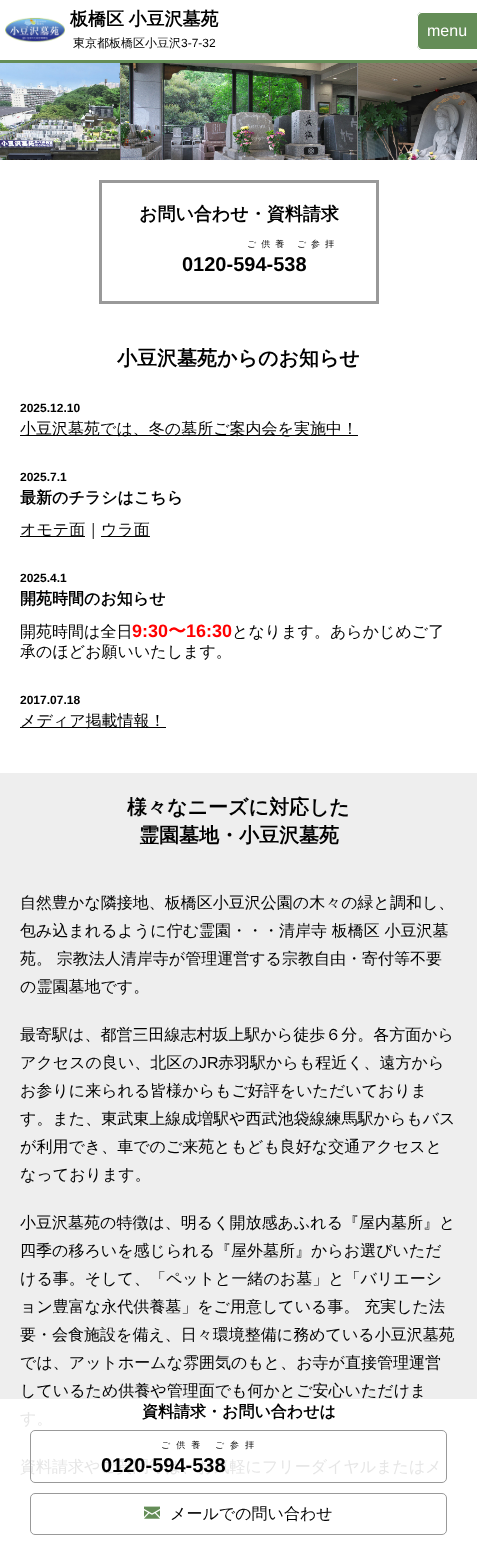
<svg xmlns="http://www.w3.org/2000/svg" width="477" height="1550">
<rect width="100%" height="100%" fill="#fff"/>
<image x="5" y="17" width="60" height="26" href="media/1.png"/>
<text x="70" y="25" word-spacing="-1" style="font-family:WenQuanYi Zen Hei;font-size:18px;font-weight:bold;fill:#000">板橋区 小豆沢墓苑</text>
<text x="73" y="47" style="font-family:WenQuanYi Zen Hei;font-size:12px;font-weight:500;fill:#000">東京都板橋区小豆沢</text>
<text x="181" y="47" style="font-family:Liberation Sans;font-size:12px;fill:#000">3-7-32</text>
<path d="M422 12h55v38h-55c-3 0-5-2-5-5v-28c0-3 2-5 5-5z" fill="#648d57"/>
<path d="M422 12h55v38h-55c-3 0-5-2-5-5v-28c0-3 2-5 5-5zm0 1h55v36h-55c-2 0-4-2-4-4v-28c0-2 2-4 4-4z" fill="#fff" fill-rule="evenodd"/>
<text x="427" y="36" style="font-family:Liberation Sans;font-size:16px;fill:#fff">menu</text>
<image x="0" y="63" width="477" height="97" href="media/2.png"/>
<rect y="60" width="477" height="3" fill="#648d57"/>
<rect x="100.5" y="181.5" width="277" height="121" fill="none" stroke="#999" stroke-width="3"/>
<text x="139" y="220" style="font-family:WenQuanYi Zen Hei;font-size:18px;font-weight:bold;fill:#000">お問い合わせ・資料請求</text>
<text x="247" y="247" style="font-family:WenQuanYi Zen Hei;font-size:9px;font-weight:500;letter-spacing:5px;fill:#000">ご供養 ご参拝</text>
<text x="182" y="271" style="font-family:Liberation Sans;font-size:20px;font-weight:bold;fill:#000">0120-594-538</text>
<text x="117" y="365" style="font-family:WenQuanYi Zen Hei;font-size:20px;font-weight:bold;fill:#000">小豆沢墓苑からのお知らせ</text>
<text x="20" y="412" style="font-family:Liberation Sans;font-size:12px;font-weight:bold;fill:#000">2025.12.10</text>
<rect x="20" y="435" width="338" height="1" fill="#000"/>
<text x="20" y="434" style="font-family:WenQuanYi Zen Hei;font-size:16px;font-weight:500;fill:#000">小豆沢墓苑では、冬の墓所ご案内会を実施中！</text>
<text x="20" y="481" style="font-family:Liberation Sans;font-size:12px;font-weight:bold;fill:#000">2025.7.1</text>
<text x="20" y="503" style="font-family:WenQuanYi Zen Hei;font-size:16px;font-weight:bold;fill:#000">最新のチラシはこちら</text>
<rect x="20" y="536" width="65" height="1" fill="#000"/>
<text x="20" y="535" style="font-family:WenQuanYi Zen Hei;font-size:16px;font-weight:500;fill:#000">オモテ面｜</text>
<rect x="101" y="536" width="49" height="1" fill="#000"/>
<text x="101" y="535" style="font-family:WenQuanYi Zen Hei;font-size:16px;font-weight:500;fill:#000">ウラ面</text>
<text x="20" y="582" style="font-family:Liberation Sans;font-size:12px;font-weight:bold;fill:#000">2025.4.1</text>
<text x="20" y="604" style="font-family:WenQuanYi Zen Hei;font-size:16px;font-weight:bold;fill:#000">開苑時間のお知らせ</text>
<text x="20" y="637" style="font-family:WenQuanYi Zen Hei;font-size:16px;font-weight:500;fill:#000">開苑時間は全日</text>
<text x="132" y="637" style="font-family:Liberation Sans;font-size:18px;font-weight:bold;fill:#f00">9:30</text>
<text x="168" y="637" style="font-family:WenQuanYi Zen Hei;font-size:18px;font-weight:bold;fill:#f00">〜</text>
<text x="186" y="637" style="font-family:Liberation Sans;font-size:18px;font-weight:bold;fill:#f00">16:30</text>
<text x="232" y="637" style="font-family:WenQuanYi Zen Hei;font-size:16px;font-weight:500;fill:#000">となります。あらかじめご了</text>
<text x="20" y="657" style="font-family:WenQuanYi Zen Hei;font-size:16px;font-weight:500;fill:#000">承のほどお願いいたします。</text>
<text x="20" y="704" style="font-family:Liberation Sans;font-size:12px;font-weight:bold;fill:#000">2017.07.18</text>
<rect x="20" y="727" width="146" height="1" fill="#000"/>
<text x="20" y="726" style="font-family:WenQuanYi Zen Hei;font-size:16px;font-weight:500;fill:#000">メディア掲載情報！</text>
<rect y="773" width="477" height="626" fill="#eee"/>
<text x="127" y="814" style="font-family:WenQuanYi Zen Hei;font-size:20px;font-weight:bold;fill:#000">様々なニーズに対応した</text>
<text x="139" y="842" style="font-family:WenQuanYi Zen Hei;font-size:20px;font-weight:bold;fill:#000">霊園墓地・小豆沢墓苑</text>
<text x="20" y="908" style="font-family:WenQuanYi Zen Hei;font-size:16px;font-weight:500;fill:#000">自然豊かな隣接地、板橋区小豆沢公園の木々の緑と調和し、</text>
<text x="20" y="936" style="font-family:WenQuanYi Zen Hei;font-size:16px;font-weight:500;fill:#000">包み込まれるように佇む霊園・・・清岸寺 板橋区 小豆沢墓</text>
<text x="20" y="964" style="font-family:WenQuanYi Zen Hei;font-size:16px;font-weight:500;fill:#000">苑。 宗教法人清岸寺が管理運営する宗教自由・寄付等不要</text>
<text x="20" y="992" style="font-family:WenQuanYi Zen Hei;font-size:16px;font-weight:500;fill:#000">の霊園墓地です。</text>
<text x="20" y="1040" style="font-family:WenQuanYi Zen Hei;font-size:16px;font-weight:500;fill:#000">最寄駅は、都営三田線志村坂上駅から徒歩６分。各方面から</text>
<text x="20" y="1068" style="font-family:WenQuanYi Zen Hei;font-size:16px;font-weight:500;fill:#000">アクセスの良い、北区の</text>
<text x="199" y="1068" style="font-family:Liberation Sans;font-size:16px;fill:#000">JR</text>
<text x="218" y="1068" style="font-family:WenQuanYi Zen Hei;font-size:16px;font-weight:500;fill:#000">赤羽駅からも程近く、遠方から</text>
<text x="20" y="1096" style="font-family:WenQuanYi Zen Hei;font-size:16px;font-weight:500;fill:#000">お参りに来られる皆様からもご好評をいただいておりま</text>
<text x="20" y="1124" style="font-family:WenQuanYi Zen Hei;font-size:16px;font-weight:500;fill:#000">す。また、東武東上線成増駅や西武池袋線練馬駅からもバス</text>
<text x="20" y="1152" style="font-family:WenQuanYi Zen Hei;font-size:16px;font-weight:500;fill:#000">が利用でき、車でのご来苑ともども良好な交通アクセスと</text>
<text x="20" y="1180" style="font-family:WenQuanYi Zen Hei;font-size:16px;font-weight:500;fill:#000">なっております。</text>
<text x="20" y="1228" style="font-family:WenQuanYi Zen Hei;font-size:16px;font-weight:500;fill:#000">小豆沢墓苑の特徴は、明るく開放感あふれる『屋内墓所』と</text>
<text x="20" y="1256" style="font-family:WenQuanYi Zen Hei;font-size:16px;font-weight:500;fill:#000">四季の移ろいを感じられる『屋外墓所』からお選びいただ</text>
<text x="20" y="1284" style="font-family:WenQuanYi Zen Hei;font-size:16px;font-weight:500;fill:#000">ける事。そして、「ペットと一緒のお墓」と「バリエーシ</text>
<text x="20" y="1312" style="font-family:WenQuanYi Zen Hei;font-size:16px;font-weight:500;fill:#000">ョン豊富な永代供養墓」をご用意している事。 充実した法</text>
<text x="20" y="1340" style="font-family:WenQuanYi Zen Hei;font-size:16px;font-weight:500;fill:#000">要・会食施設を備え、日々環境整備に務めている小豆沢墓苑</text>
<text x="20" y="1368" style="font-family:WenQuanYi Zen Hei;font-size:16px;font-weight:500;fill:#000">では、アットホームな雰囲気のもと、お寺が直接管理運営</text>
<text x="20" y="1396" style="font-family:WenQuanYi Zen Hei;font-size:16px;font-weight:500;fill:#000">しているため供養や管理面でも何かとご安心いただけま</text>
<text x="20" y="1424" style="font-family:WenQuanYi Zen Hei;font-size:16px;font-weight:500;fill:#e6e6e6">す。</text>
<text x="20" y="1472" style="font-family:WenQuanYi Zen Hei;font-size:16px;font-weight:500;fill:#e6e6e6">資料請求やご質問等は、お気軽にフリーダイヤルまたはメ</text>
<text x="142" y="1417" style="font-family:WenQuanYi Zen Hei;font-size:16px;font-weight:bold;fill:#000">資料請求・お問い合わせは</text>
<rect x="30.5" y="1430.5" width="416" height="52" rx="4.5" fill="none" stroke="#999"/>
<text x="161" y="1448" style="font-family:WenQuanYi Zen Hei;font-size:9px;font-weight:500;letter-spacing:6px;fill:#000">ご供養 ご参拝</text>
<text x="101" y="1472" style="font-family:Liberation Sans;font-size:20px;font-weight:bold;fill:#000">0120-594-538</text>
<rect x="30.5" y="1493.5" width="416" height="41" rx="4.5" fill="none" stroke="#999"/>
<image x="144" y="1506" width="16" height="13" href="media/3.png"/>
<text x="170" y="1519" style="font-family:WenQuanYi Zen Hei;font-size:16px;font-weight:500;fill:#000">メールでの問い合わせ</text>
</svg>
